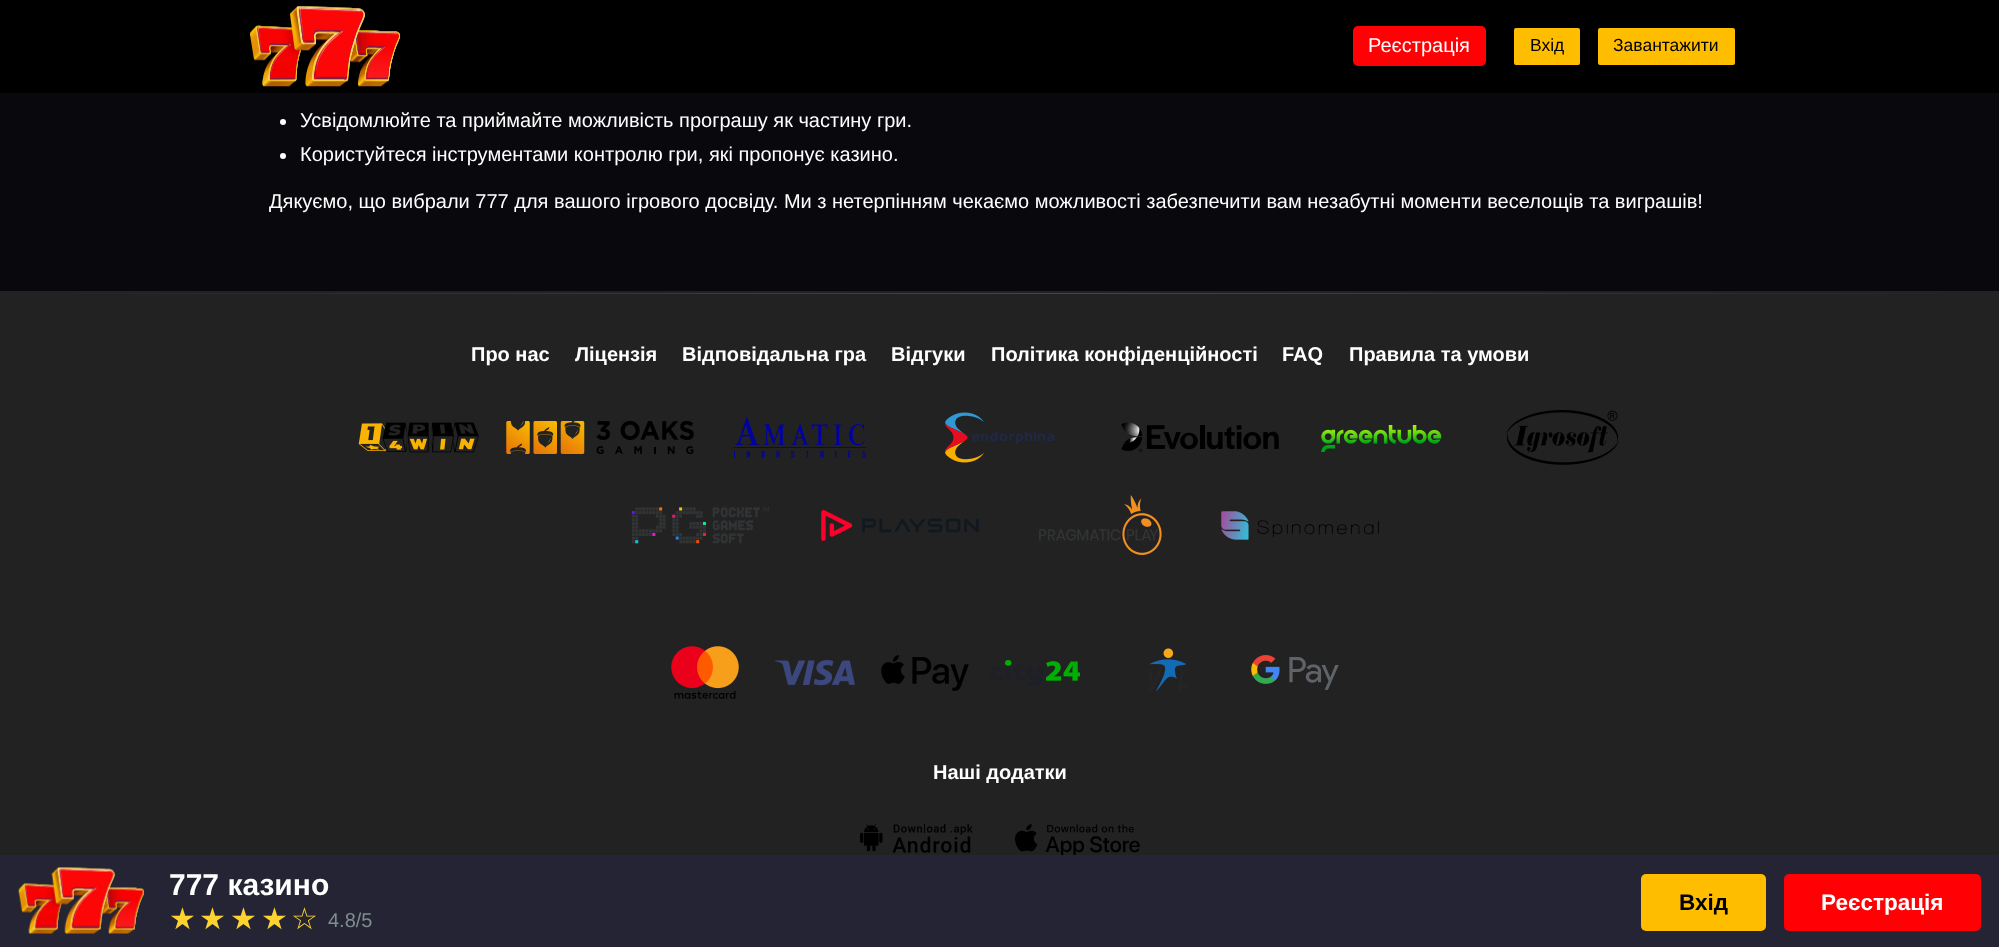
<svg xmlns="http://www.w3.org/2000/svg" width="1999" height="947">
<defs>
<linearGradient id="g1" gradientUnits="userSpaceOnUse" x1="0" y1="293" x2="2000" y2="293"><stop offset="0" stop-color="#222"/><stop offset="0.28" stop-color="#353535"/><stop offset="0.53" stop-color="#474646"/><stop offset="0.74" stop-color="#383737"/><stop offset="1" stop-color="#222"/></linearGradient>
</defs>
<rect width="100%" height="100%" fill="#09080d"/>
<rect width="1999" height="93" fill="#000"/>
<image x="250" y="6" width="150" height="81" href="media/1.png"/>
<rect x="1353" y="26" width="133" height="40" rx="5" fill="#ff0004"/>
<text x="1368" y="52" style="font-family:Liberation Sans;font-size:20px;fill:#fff">Реєстрація</text>
<rect x="1512.5" y="26.5" width="69" height="40" rx="3.5" fill="#ffbd00" stroke="#000" stroke-width="3"/>
<text x="1530" y="51" style="font-family:Liberation Sans;font-size:17.5px;fill:#000">Вхід</text>
<rect x="1596.5" y="26.5" width="140" height="40" rx="3.5" fill="#ffbd00" stroke="#000" stroke-width="3"/>
<text x="1613" y="51" style="font-family:Liberation Sans;font-size:17.5px;fill:#000">Завантажити</text>
<circle cx="283" cy="122" r="3" fill="#fff"/>
<text x="300" y="127" style="font-family:Liberation Sans;font-size:20px;fill:#fff">Усвідомлюйте та приймайте можливість програшу як частину гри.</text>
<circle cx="283" cy="156" r="3" fill="#fff"/>
<text x="300" y="161" style="font-family:Liberation Sans;font-size:20px;fill:#fff">Користуйтеся інструментами контролю гри, які пропонує казино.</text>
<text x="269" y="208" style="font-family:Liberation Sans;font-size:20px;fill:#fff">Дякуємо, що вибрали 777 для вашого ігрового досвіду. Ми з нетерпінням чекаємо можливості забезпечити вам незабутні моменти веселощів та виграшів!</text>
<rect y="291" width="1999" height="656" fill="#222"/>
<rect x="74" y="293" width="1867" height="1" fill="url(#g1)"/>
<text x="471" y="361" style="font-family:Liberation Sans;font-size:20px;font-weight:bold;fill:#fff">Про нас</text>
<text x="575" y="361" style="font-family:Liberation Sans;font-size:20px;font-weight:bold;fill:#fff">Ліцензія</text>
<text x="682" y="361" style="font-family:Liberation Sans;font-size:20px;font-weight:bold;fill:#fff">Відповідальна гра</text>
<text x="891" y="361" style="font-family:Liberation Sans;font-size:20px;font-weight:bold;fill:#fff">Відгуки</text>
<text x="991" y="361" style="font-family:Liberation Sans;font-size:20px;font-weight:bold;fill:#fff">Політика конфіденційності</text>
<text x="1282" y="361" style="font-family:Liberation Sans;font-size:20px;font-weight:bold;fill:#fff">FAQ</text>
<text x="1349" y="361" style="font-family:Liberation Sans;font-size:20px;font-weight:bold;fill:#fff">Правила та умови</text>
<image x="358" y="422" width="121" height="31" href="media/2.png"/>
<image x="506" y="421" width="188" height="33" href="media/3.png"/>
<image x="734" y="417" width="132" height="41" href="media/4.png"/>
<image x="945" y="412" width="109" height="51" href="media/5.png"/>
<image x="1121" y="422" width="158" height="31" href="media/6.png"/>
<image x="1321" y="425" width="121" height="27" href="media/7.png"/>
<image x="1506" y="410" width="113" height="55" href="media/8.png"/>
<image x="631" y="507" width="138" height="37" href="media/9.png"/>
<image x="821" y="510" width="158" height="31" href="media/10.png"/>
<image x="1039" y="495" width="123" height="60" href="media/11.png"/>
<image x="1221" y="511" width="158" height="29" href="media/12.png"/>
<image x="671" y="646" width="68" height="53" href="media/13.png"/>
<image x="775" y="660" width="80" height="26" href="media/14.png"/>
<image x="881" y="655" width="88" height="36" href="media/15.png"/>
<image x="990" y="660" width="90" height="26" href="media/16.png"/>
<image x="1149" y="648" width="38" height="44" href="media/17.png"/>
<image x="1251" y="655" width="88" height="35" href="media/18.png"/>
<text x="933" y="779" style="font-family:Liberation Sans;font-size:20px;font-weight:bold;fill:#fff">Наші додатки</text>
<image x="860" y="824" width="113" height="29" href="media/19.png"/>
<image x="1015" y="824" width="125" height="32" href="media/20.png"/>
<rect y="855" width="1999" height="92" fill="#252536f2"/>
<image x="18" y="867" width="126" height="67" href="media/21.png"/>
<text x="169" y="895" style="font-family:Liberation Sans;font-size:30px;font-weight:bold;fill:#fff">777 казино</text>
<text x="169" y="929" style="font-family:DejaVu Sans;font-size:30px;fill:#fed330">★</text>
<text x="199" y="929" style="font-family:DejaVu Sans;font-size:30px;fill:#fed330">★</text>
<text x="230" y="929" style="font-family:DejaVu Sans;font-size:30px;fill:#fed330">★</text>
<text x="261" y="929" style="font-family:DejaVu Sans;font-size:30px;fill:#fed330">★</text>
<text x="291" y="929" style="font-family:DejaVu Sans;font-size:30px;fill:#fed330">☆</text>
<text x="328" y="927" style="font-family:Liberation Sans;font-size:20px;fill:#7f8c8d">4.8/5</text>
<rect x="1641" y="874" width="125" height="57" rx="5" fill="#ffbd00"/>
<text x="1679" y="910" style="font-family:Liberation Sans;font-size:22.5px;font-weight:bold;fill:#000">Вхід</text>
<rect x="1784" y="874" width="197" height="57" rx="5" fill="#ff0004"/>
<text x="1821" y="910" style="font-family:Liberation Sans;font-size:22.5px;font-weight:bold;fill:#fff">Реєстрація</text>
</svg>
